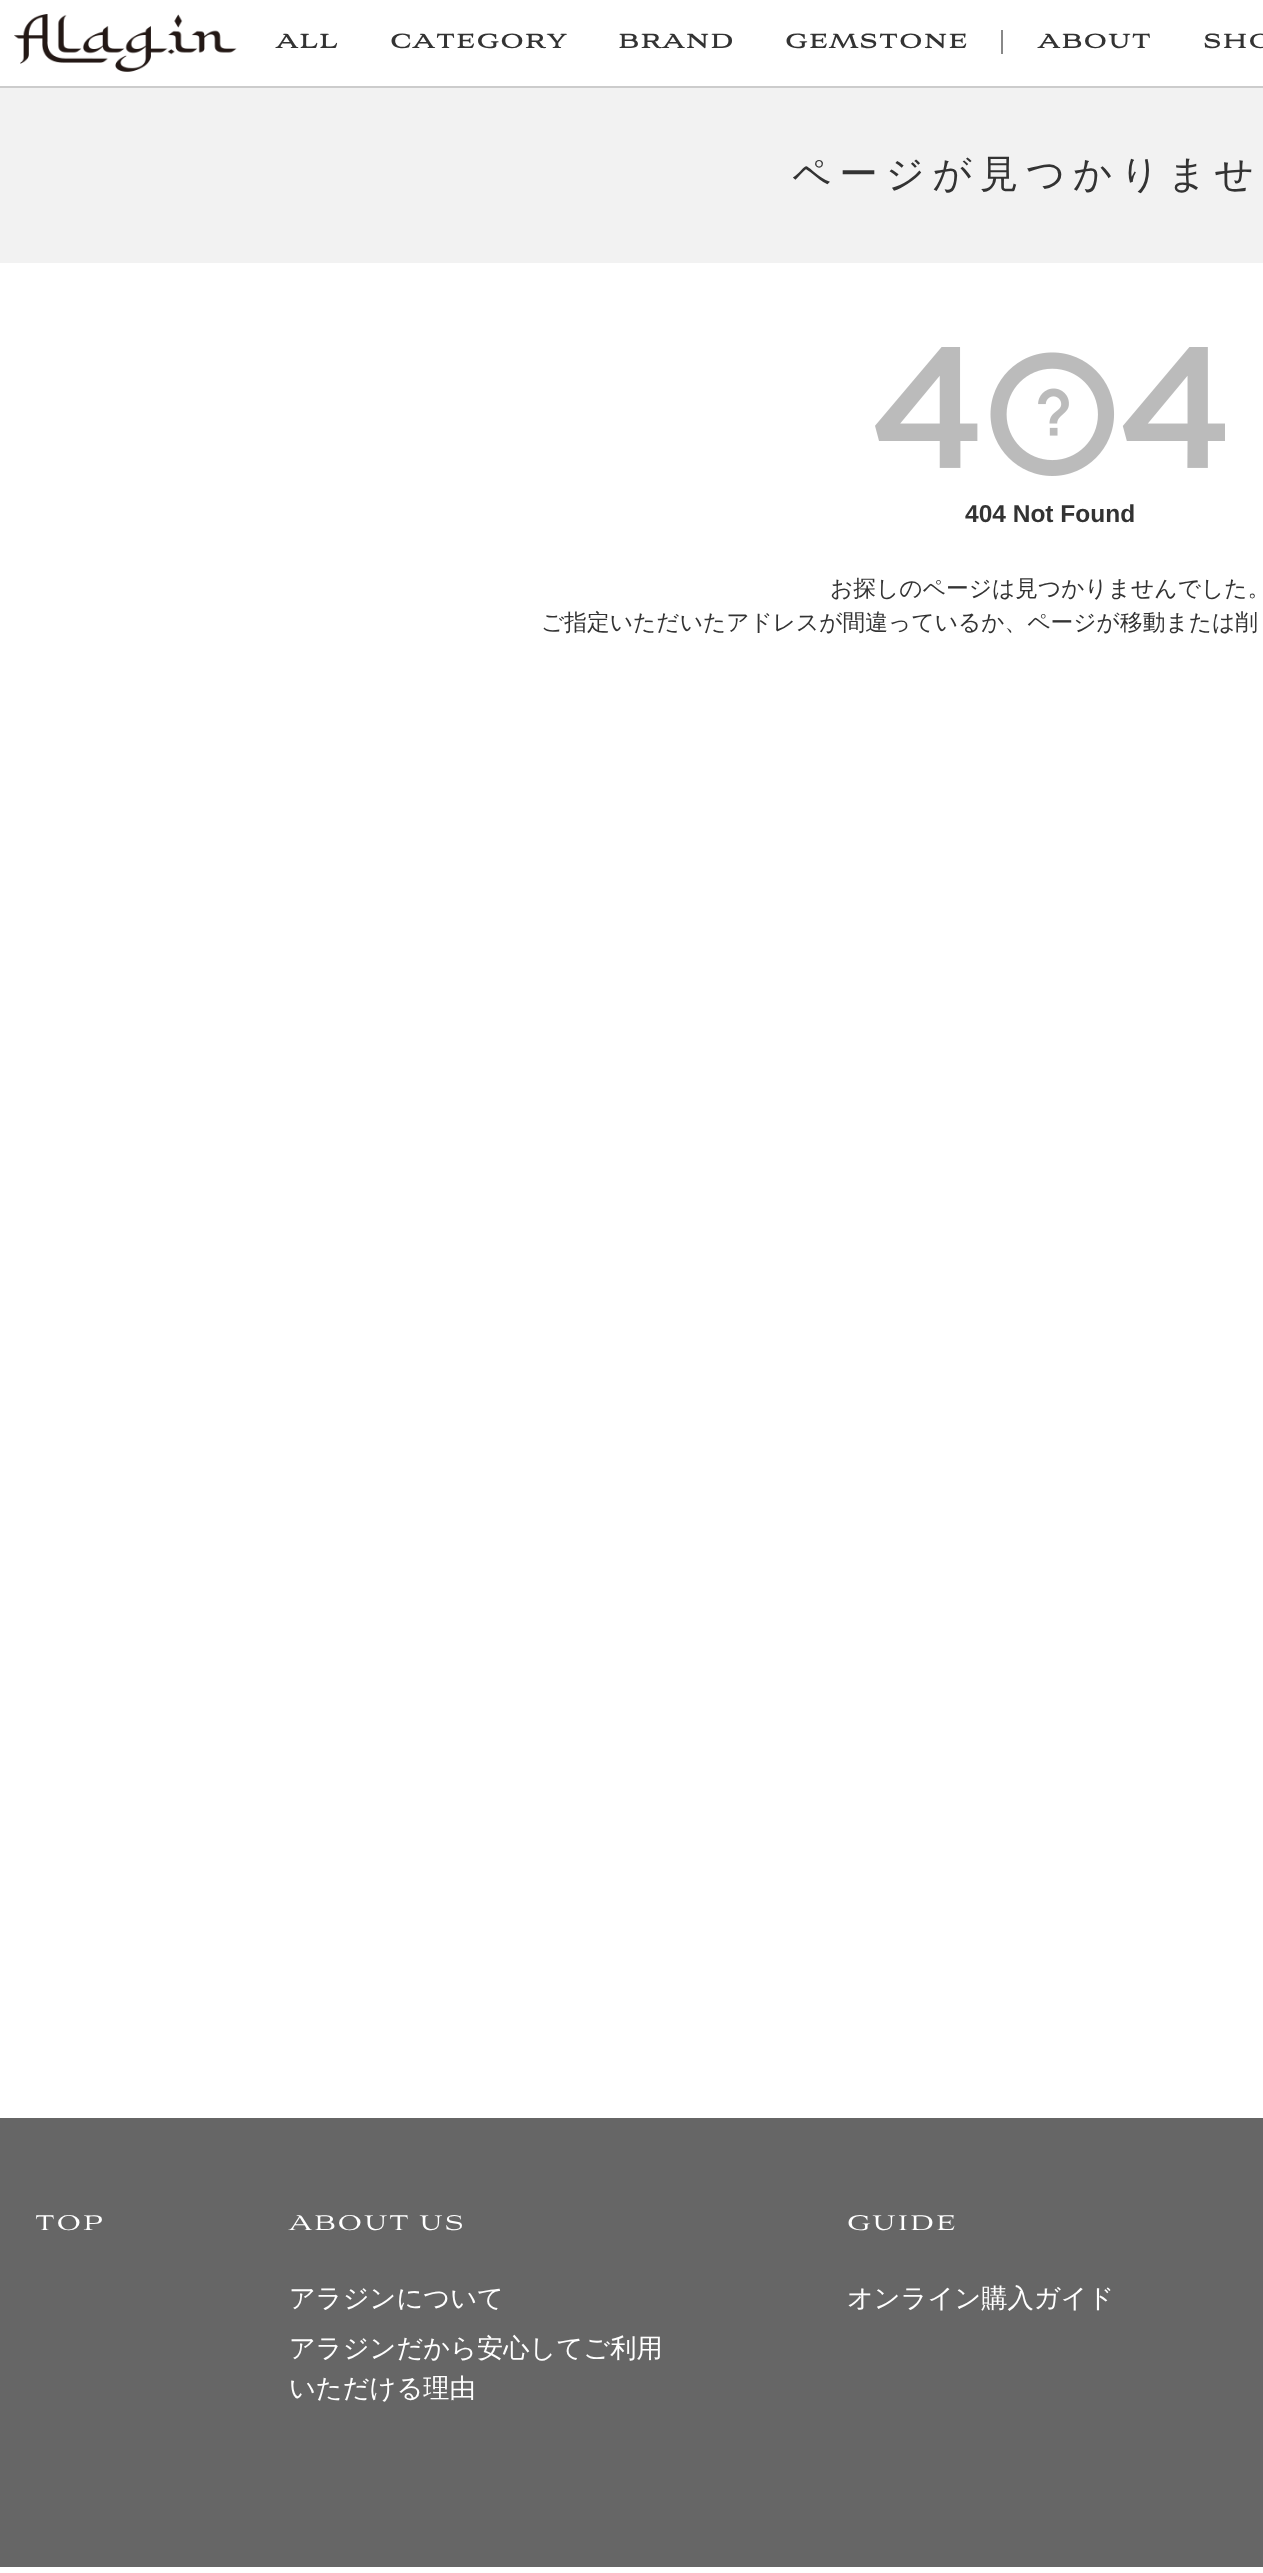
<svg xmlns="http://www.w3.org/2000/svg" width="1263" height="2573">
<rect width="100%" height="100%" fill="#fff"/>
<rect y="86" width="1263" height="2" fill="#ccc"/>
<image x="14" y="14" width="223" height="58" href="media/1.png"/>
<text x="276" y="48" style="font-family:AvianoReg;font-size:24.5px;font-weight:bold;letter-spacing:1.75px;fill:#333">ALL</text>
<text x="390" y="48" style="font-family:AvianoReg;font-size:24.5px;font-weight:bold;letter-spacing:1.75px;fill:#333">CATEGORY</text>
<text x="618" y="48" style="font-family:AvianoReg;font-size:24.5px;font-weight:bold;letter-spacing:1.75px;fill:#333">BRAND</text>
<text x="785" y="48" style="font-family:AvianoReg;font-size:24.5px;font-weight:bold;letter-spacing:1.75px;fill:#333">GEMSTONE</text>
<rect x="1001" y="30" width="2" height="24" fill="#888"/>
<text x="1038" y="48" style="font-family:AvianoReg;font-size:24.5px;font-weight:bold;letter-spacing:1.75px;fill:#333">ABOUT</text>
<text x="1203" y="48" style="font-family:AvianoReg;font-size:24.5px;font-weight:bold;letter-spacing:1.75px;fill:#333">SHO</text>
<rect y="88" width="1263" height="175" fill="#f2f2f2"/>
<text x="792" y="187" style="font-family:WenQuanYi Zen Hei;font-size:38.5px;font-weight:500;letter-spacing:7.75px;fill:#333">ページが見つかりませ</text>
<image x="875" y="347" width="350" height="129" href="media/2.png"/>
<text x="965" y="522" style="font-family:Liberation Sans;font-size:24.5px;font-weight:bold;fill:#333">404 Not Found</text>
<text x="830" y="596" style="font-family:WenQuanYi Zen Hei;font-size:22.75px;font-weight:500;fill:#333">お探しのページは見つかりませんでした。</text>
<text x="541" y="630" style="font-family:WenQuanYi Zen Hei;font-size:22.75px;font-weight:500;fill:#333">ご指定いただいたアドレスが間違っているか、ページが移動または削</text>
<rect y="2118" width="1263" height="449" fill="#666"/>
<text x="35" y="2230" style="font-family:AvianoReg;font-size:26.25px;letter-spacing:1.75px;fill:#fff">TOP</text>
<text x="289" y="2230" style="font-family:AvianoReg;font-size:26.25px;letter-spacing:1.75px;fill:#fff">ABOUT US</text>
<text x="289" y="2307" style="font-family:WenQuanYi Zen Hei;font-size:26.25px;font-weight:500;fill:#fff">アラジンについて</text>
<text x="289" y="2357" style="font-family:WenQuanYi Zen Hei;font-size:26.25px;font-weight:500;fill:#fff">アラジンだから安心してご利用</text>
<text x="289" y="2397" style="font-family:WenQuanYi Zen Hei;font-size:26.25px;font-weight:500;fill:#fff">いただける理由</text>
<text x="847" y="2230" style="font-family:AvianoReg;font-size:26.25px;letter-spacing:1.75px;fill:#fff">GUIDE</text>
<text x="847" y="2307" style="font-family:WenQuanYi Zen Hei;font-size:26.25px;font-weight:500;fill:#fff">オンライン購入ガイド</text>
</svg>
